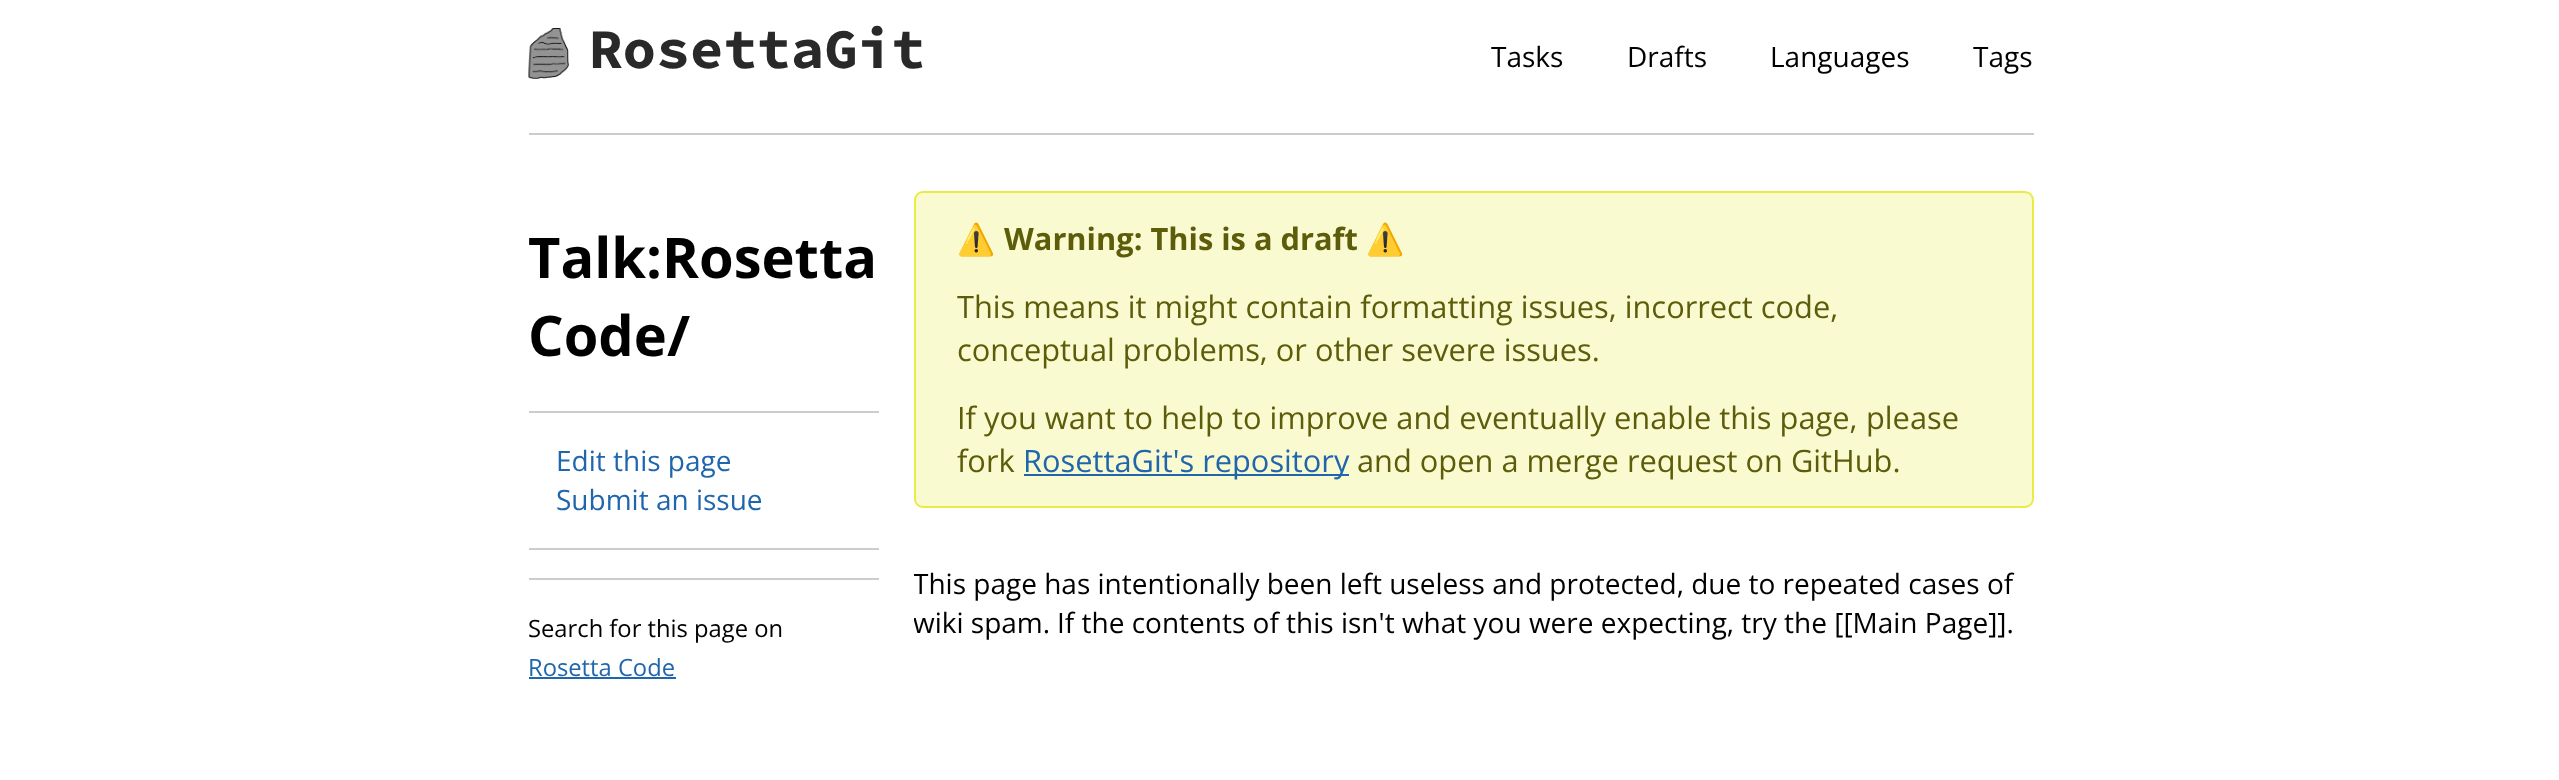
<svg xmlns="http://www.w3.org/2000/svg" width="2559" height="780">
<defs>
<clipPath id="clip1"><rect x="914" y="191" width="1120" height="539"/></clipPath>
</defs>
<rect width="100%" height="100%" fill="#fff"/>
<rect x="529" y="133" width="1505" height="2" fill="#ccc"/>
<image x="528" y="28" width="41" height="51" href="media/1.png"/>
<text x="589" y="68" style="font-family:Source Code Pro;font-size:56px;font-weight:bold;fill:#292929">RosettaGit</text>
<text x="1491" y="67" style="font-family:Open Sans;font-size:28px;fill:#000">Tasks</text>
<text x="1627" y="67" style="font-family:Open Sans;font-size:28px;fill:#000">Drafts</text>
<text x="1770" y="67" style="font-family:Open Sans;font-size:28px;fill:#000">Languages</text>
<text x="1973" y="67" style="font-family:Open Sans;font-size:28px;fill:#000">Tags</text>
<text x="528" y="278" style="font-family:Open Sans;font-size:56px;font-weight:bold;fill:#000">Talk:Rosetta</text>
<text x="528" y="356" style="font-family:Open Sans;font-size:56px;font-weight:bold;fill:#000">Code/</text>
<rect x="529" y="411" width="350" height="2" fill="#ccc"/>
<text x="556" y="471" style="font-family:Open Sans;font-size:28px;fill:#1f66ad">Edit this page</text>
<text x="556" y="510" style="font-family:Open Sans;font-size:28px;fill:#1f66ad">Submit an issue</text>
<rect x="529" y="548" width="350" height="2" fill="#ccc"/>
<rect x="529" y="578" width="350" height="2" fill="#ccc"/>
<text x="528" y="637" style="font-family:Open Sans;font-size:23.75px;fill:#000">Search for this page on</text>
<text x="528" y="676" style="font-family:Open Sans;font-size:23.75px;fill:#1f66ad">Rosetta Code</text>
<rect x="529" y="677" width="147" height="2" fill="#1f66ad"/>
<rect x="915" y="192" width="1118" height="315" rx="8" fill="#fafad1" stroke="#ebeb47" stroke-width="2"/>
<text x="957" y="250" style="font-family:Noto Color Emoji;font-size:30.8px;font-weight:bold;fill:#5c5c0a">⚠️</text>
<text x="1004" y="250" style="font-family:Open Sans;font-size:30.8px;font-weight:bold;fill:#5c5c0a">Warning: This is a draft</text>
<text x="1366" y="250" style="font-family:Noto Color Emoji;font-size:30.8px;font-weight:bold;fill:#5c5c0a">⚠️</text>
<text x="957" y="318" style="font-family:Open Sans;font-size:30.8px;fill:#5c5c0a">This means it might contain formatting issues, incorrect code,</text>
<text x="957" y="361" style="font-family:Open Sans;font-size:30.8px;fill:#5c5c0a">conceptual problems, or other severe issues.</text>
<text x="957" y="429" style="font-family:Open Sans;font-size:30.8px;fill:#5c5c0a">If you want to help to improve and eventually enable this page,</text>
<text x="1866" y="429" style="font-family:Open Sans;font-size:30.8px;fill:#5c5c0a">please</text>
<text x="957" y="472" style="font-family:Open Sans;font-size:30.8px;fill:#5c5c0a">fork</text>
<rect x="1024" y="474" width="325" height="2" fill="#1f66ad"/>
<text x="1023" y="472" style="font-family:Open Sans;font-size:30.8px;fill:#1f66ad">RosettaGit's repository</text>
<text x="1357" y="472" style="font-family:Open Sans;font-size:30.8px;fill:#5c5c0a">and open a merge request on GitHub.</text>
<g clip-path="url(#clip1)">
<text x="913" y="594" style="font-family:Open Sans;font-size:28px;fill:#000">This page has intentionally been left useless and protected, due to repeated cases of</text>
<text x="913" y="633" style="font-family:Open Sans;font-size:28px;fill:#000">wiki spam.</text>
</g>
<text x="1057" y="633" style="font-family:Open Sans;font-size:28px;fill:#000">If the contents of this isn't what you were expecting, try the [[Main Page]].</text>
</svg>
